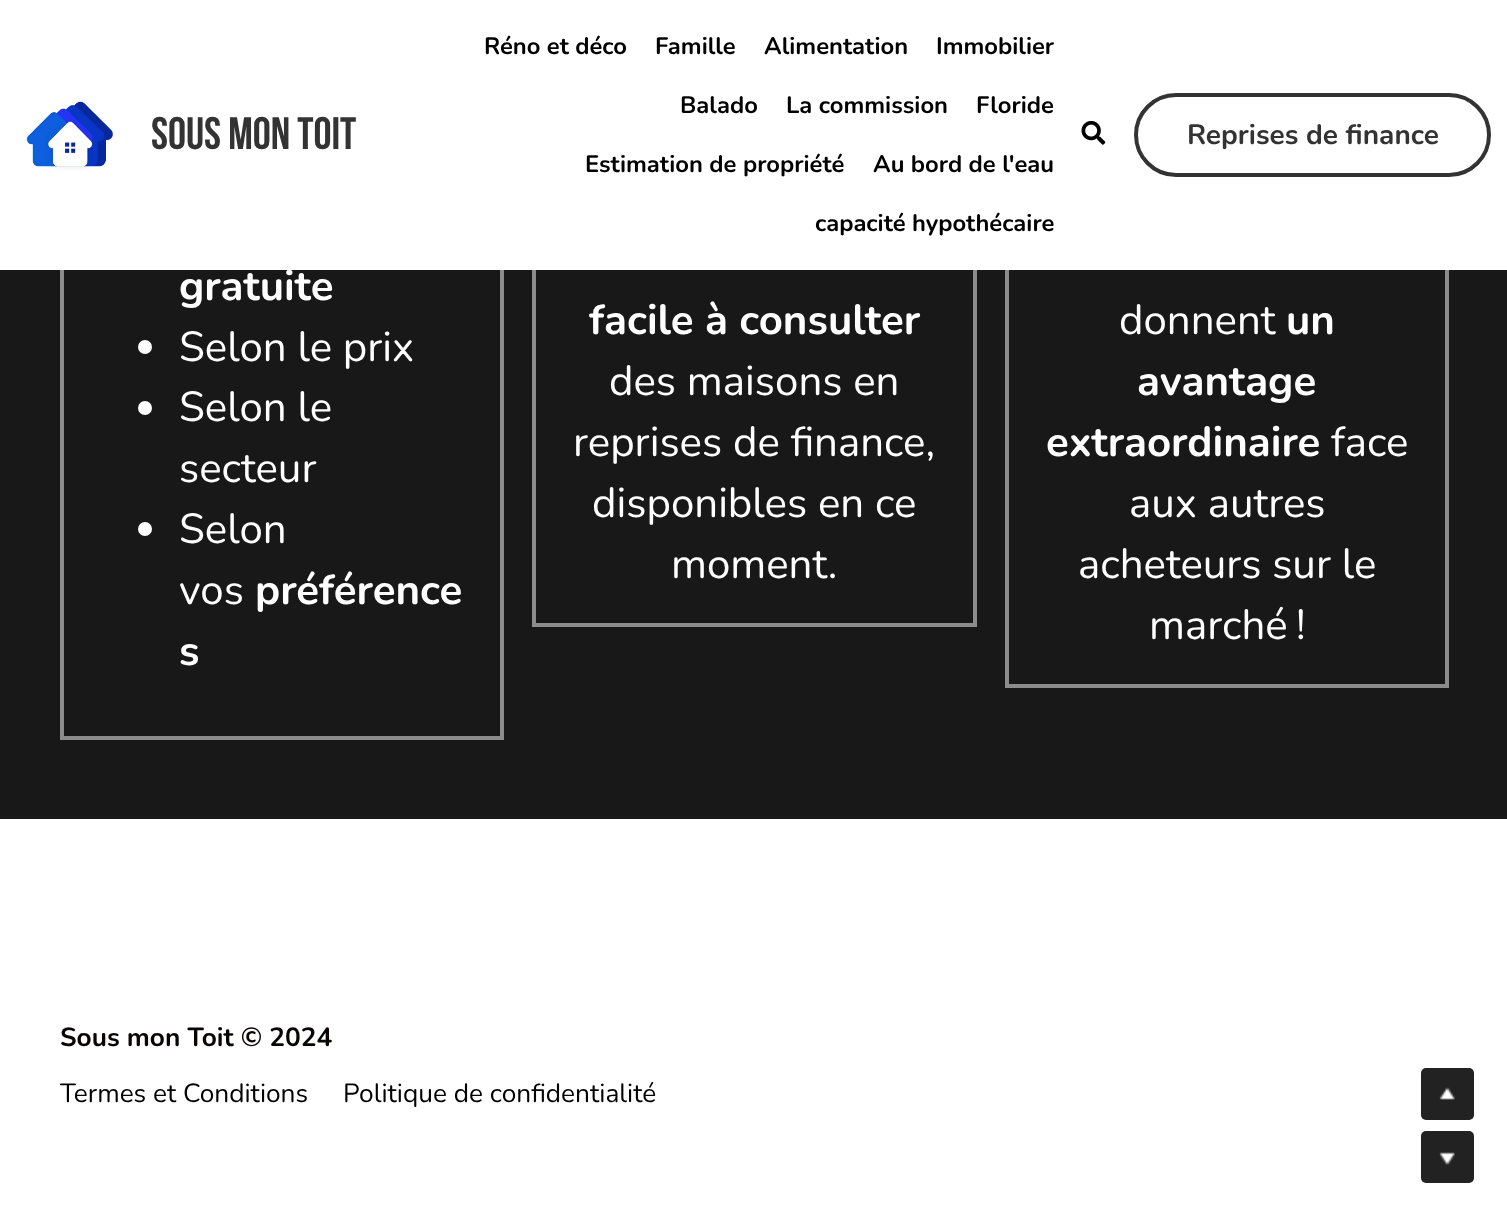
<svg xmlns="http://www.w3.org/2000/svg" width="1507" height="1217">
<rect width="100%" height="100%" fill="#fff"/>
<rect y="270" width="1507" height="549" fill="#181818"/>
<rect x="62" y="139" width="440" height="599" fill="none" stroke="#8c8c8c" stroke-width="4"/>
<rect x="534" y="139" width="441" height="486" fill="none" stroke="#8c8c8c" stroke-width="4"/>
<rect x="1007" y="139" width="440" height="547" fill="none" stroke="#8c8c8c" stroke-width="4"/>
<rect x="60" y="137" width="1389" height="133" fill="#fff"/>
<image x="26" y="99" width="88" height="72" href="media/1.png"/>
<text x="151" y="149" style="font-family:Bebas Neue;font-size:45.5px;font-weight:bold;fill:#333">SOUS MON TOIT</text>
<text x="484" y="54" style="font-family:Nunito;font-size:23.75px;font-weight:bold;fill:#000">Réno et déco</text>
<text x="655" y="54" style="font-family:Nunito;font-size:23.75px;font-weight:bold;fill:#000">Famille</text>
<text x="764" y="54" style="font-family:Nunito;font-size:23.75px;font-weight:bold;fill:#000">Alimentation</text>
<text x="936" y="54" style="font-family:Nunito;font-size:23.75px;font-weight:bold;fill:#000">Immobilier</text>
<text x="680" y="113" style="font-family:Nunito;font-size:23.75px;font-weight:bold;fill:#000">Balado</text>
<text x="786" y="113" style="font-family:Nunito;font-size:23.75px;font-weight:bold;fill:#000">La commission</text>
<text x="976" y="113" style="font-family:Nunito;font-size:23.75px;font-weight:bold;fill:#000">Floride</text>
<text x="585" y="172" style="font-family:Nunito;font-size:23.75px;font-weight:bold;fill:#000">Estimation de propriété</text>
<text x="873" y="172" style="font-family:Nunito;font-size:23.75px;font-weight:bold;fill:#000">Au bord de l'eau</text>
<text x="815" y="231" style="font-family:Nunito;font-size:23.75px;font-weight:bold;fill:#000">capacité hypothécaire</text>
<image x="1081" y="120" width="25" height="25" href="media/2.png"/>
<rect x="1136" y="95" width="353" height="80" rx="40" fill="none" stroke="#333" stroke-width="4"/>
<text x="1187" y="144" style="font-family:Nunito;font-size:28px;font-weight:bold;fill:#333">Reprises de finance</text>
<text x="179" y="300" style="font-family:Nunito;font-size:42px;font-weight:bold;fill:#fff">gratuite</text>
<circle cx="145" cy="347" r="7" fill="#fff"/>
<text x="179" y="361" style="font-family:Nunito;font-size:42px;fill:#fff">Selon le prix</text>
<circle cx="145" cy="408" r="7" fill="#fff"/>
<text x="179" y="421" style="font-family:Nunito;font-size:42px;fill:#fff">Selon le</text>
<text x="179" y="482" style="font-family:Nunito;font-size:42px;fill:#fff">secteur</text>
<circle cx="145" cy="529" r="7" fill="#fff"/>
<text x="179" y="543" style="font-family:Nunito;font-size:42px;fill:#fff">Selon</text>
<text x="179" y="604" style="font-family:Nunito;font-size:42px;fill:#fff">vos</text>
<text x="255" y="604" style="font-family:Nunito;font-size:42px;font-weight:bold;fill:#fff">préférence</text>
<text x="179" y="665" style="font-family:Nunito;font-size:42px;font-weight:bold;fill:#fff">s</text>
<text x="589" y="334" style="font-family:Nunito;font-size:42px;font-weight:bold;fill:#fff">facile à consulter</text>
<text x="609" y="395" style="font-family:Nunito;font-size:42px;fill:#fff">des maisons en</text>
<text x="573" y="456" style="font-family:Nunito;font-size:42px;fill:#fff">reprises de finance,</text>
<text x="592" y="517" style="font-family:Nunito;font-size:42px;fill:#fff">disponibles en ce</text>
<text x="671" y="578" style="font-family:Nunito;font-size:42px;fill:#fff">moment.</text>
<text x="1119" y="334" style="font-family:Nunito;font-size:42px;fill:#fff">donnent</text>
<text x="1286" y="334" style="font-family:Nunito;font-size:42px;font-weight:bold;fill:#fff">un</text>
<text x="1137" y="395" style="font-family:Nunito;font-size:42px;font-weight:bold;fill:#fff">avantage</text>
<text x="1046" y="456" style="font-family:Nunito;font-size:42px;font-weight:bold;fill:#fff">extraordinaire</text>
<text x="1331" y="456" style="font-family:Nunito;font-size:42px;fill:#fff">face</text>
<text x="1129" y="517" style="font-family:Nunito;font-size:42px;fill:#fff">aux autres</text>
<text x="1078" y="578" style="font-family:Nunito;font-size:42px;fill:#fff">acheteurs sur le</text>
<text x="1149" y="639" style="font-family:Nunito;font-size:42px;fill:#fff">marché !</text>
<text x="60" y="1046" style="font-family:Nunito;font-size:26.25px;font-weight:bold;fill:#080404">Sous mon Toit © 2024</text>
<text x="60" y="1102" style="font-family:Nunito;font-size:26.25px;fill:#000">Termes et Conditions</text>
<text x="343" y="1102" style="font-family:Nunito;font-size:26.25px;fill:#000">Politique de confidentialité</text>
<rect x="1421" y="1068" width="53" height="52" rx="5" fill="#222"/>
<image x="1439" y="1087" width="16" height="13" href="media/3.png"/>
<rect x="1421" y="1131" width="53" height="52" rx="5" fill="#222"/>
<image x="1439" y="1152" width="16" height="13" href="media/4.png"/>
</svg>
